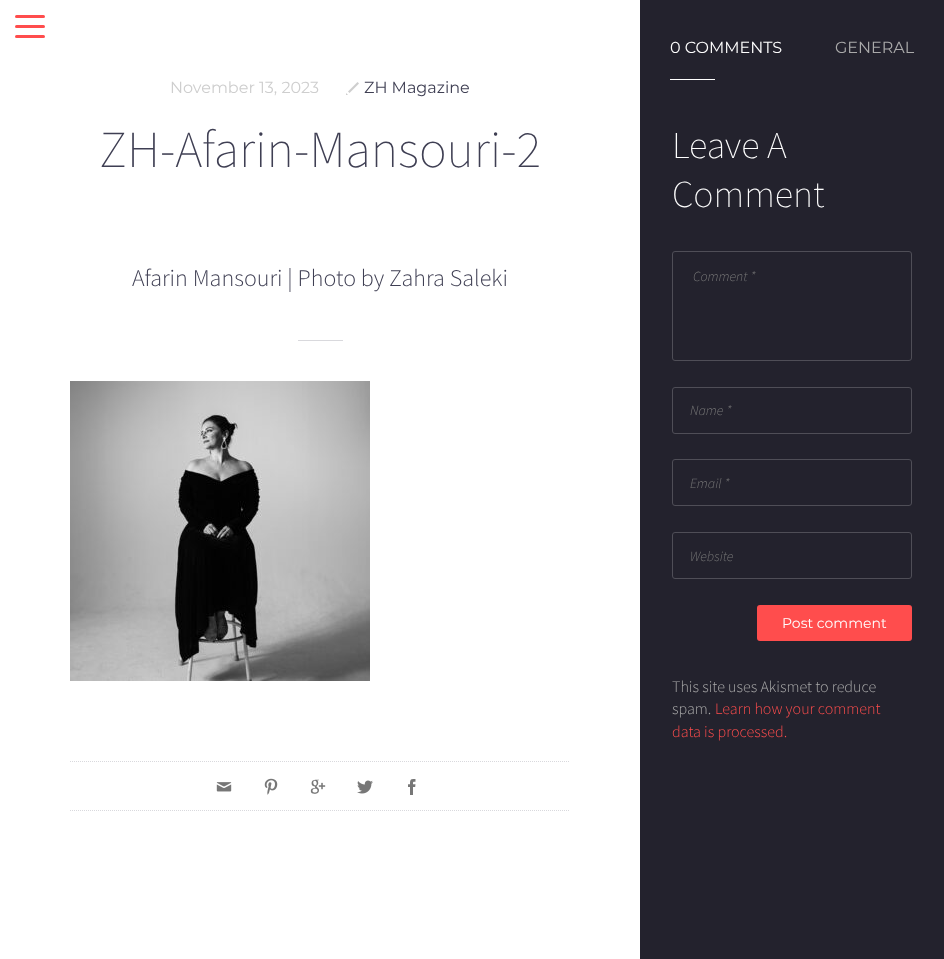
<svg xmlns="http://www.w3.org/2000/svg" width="944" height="959">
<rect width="100%" height="100%" fill="#fff"/>
<rect x="15" y="25" width="30" height="3" rx="1.5" fill="#ff4d4d"/>
<rect x="15" y="15" width="30" height="3" rx="1.5" fill="#ff4d4d"/>
<rect x="15" y="35" width="30" height="3" rx="1.5" fill="#ff4d4d"/>
<text x="170" y="93" style="font-family:Montserrat;font-size:16px;font-weight:100;fill:#cecece">November 13, 2023</text>
<image x="346" y="82" width="13" height="13" href="media/1.png"/>
<text x="364" y="93" style="font-family:Montserrat;font-size:16px;font-weight:100;fill:#3f3f53">ZH Magazine</text>
<text x="99" y="167" style="font-family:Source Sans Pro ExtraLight;font-size:52px;font-weight:200;fill:#3f3f53">ZH-Afarin-Mansouri-2</text>
<text x="132" y="286" style="font-family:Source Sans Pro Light;font-size:24px;font-weight:300;fill:#3f3f53">Afarin Mansouri | Photo by Zahra Saleki</text>
<rect x="298" y="340" width="45" height="1" fill="#d9d9dd"/>
<image x="70" y="381" width="300" height="300" href="media/2.png"/>
<path d="M70 761.5h500" fill="none" stroke="#d9d9dd" stroke-dasharray="1 1"/>
<image x="216" y="782" width="16" height="10" href="media/3.png"/>
<image x="264" y="778" width="14" height="17" href="media/4.png"/>
<image x="310" y="779" width="16" height="15" href="media/5.png"/>
<image x="357" y="780" width="16" height="14" href="media/6.png"/>
<image x="408" y="779" width="8" height="16" href="media/7.png"/>
<path d="M70 810.5h500" fill="none" stroke="#d9d9dd" stroke-dasharray="1 1"/>
<rect x="640" width="304" height="959" fill="#23222d"/>
<text x="670" y="53" style="font-family:Montserrat;font-size:16px;font-weight:100;fill:#fff">0 COMMENTS</text>
<text x="835" y="53" style="font-family:Montserrat;font-size:16px;font-weight:100;fill:#aaa">GENERAL</text>
<rect x="670" y="79" width="45" height="1" fill="#fff"/>
<text x="672" y="158" style="font-family:Source Sans Pro ExtraLight;font-size:38px;font-weight:200;fill:#fff">Leave A</text>
<text x="672" y="207" style="font-family:Source Sans Pro ExtraLight;font-size:38px;font-weight:200;fill:#fff">Comment</text>
<rect x="672.5" y="251.5" width="239" height="109" rx="2.5" fill="none" stroke="#4f4e57"/>
<text x="693" y="281" style="font-family:Source Sans Pro Light;font-size:14px;font-weight:300;font-style:italic;fill:#777">Comment *</text>
<rect x="672.5" y="387.5" width="239" height="46" rx="2.5" fill="none" stroke="#4f4e57"/>
<text x="690" y="415" style="font-family:Source Sans Pro Light;font-size:14px;font-weight:300;font-style:italic;fill:#777">Name *</text>
<rect x="672.5" y="459.5" width="239" height="46" rx="2.5" fill="none" stroke="#4f4e57"/>
<text x="690" y="488" style="font-family:Source Sans Pro Light;font-size:14px;font-weight:300;font-style:italic;fill:#777">Email *</text>
<rect x="672.5" y="532.5" width="239" height="46" rx="2.5" fill="none" stroke="#4f4e57"/>
<text x="690" y="561" style="font-family:Source Sans Pro Light;font-size:14px;font-weight:300;font-style:italic;fill:#777">Website</text>
<rect x="757" y="605" width="155" height="36" rx="3" fill="#ff4d4d"/>
<text x="782" y="628" style="font-family:Montserrat;font-size:14px;font-weight:100;fill:#fff">Post comment</text>
<text x="672" y="692" style="font-family:Source Sans Pro Light;font-size:16px;font-weight:300;fill:#aaa">This site uses Akismet to reduce</text>
<text x="672" y="714" style="font-family:Source Sans Pro Light;font-size:16px;font-weight:300;fill:#aaa">spam.</text>
<text x="715" y="714" style="font-family:Source Sans Pro Light;font-size:16px;font-weight:300;fill:#ff4d4d">Learn how your comment</text>
<text x="672" y="737" style="font-family:Source Sans Pro Light;font-size:16px;font-weight:300;fill:#ff4d4d">data is processed.</text>
</svg>
